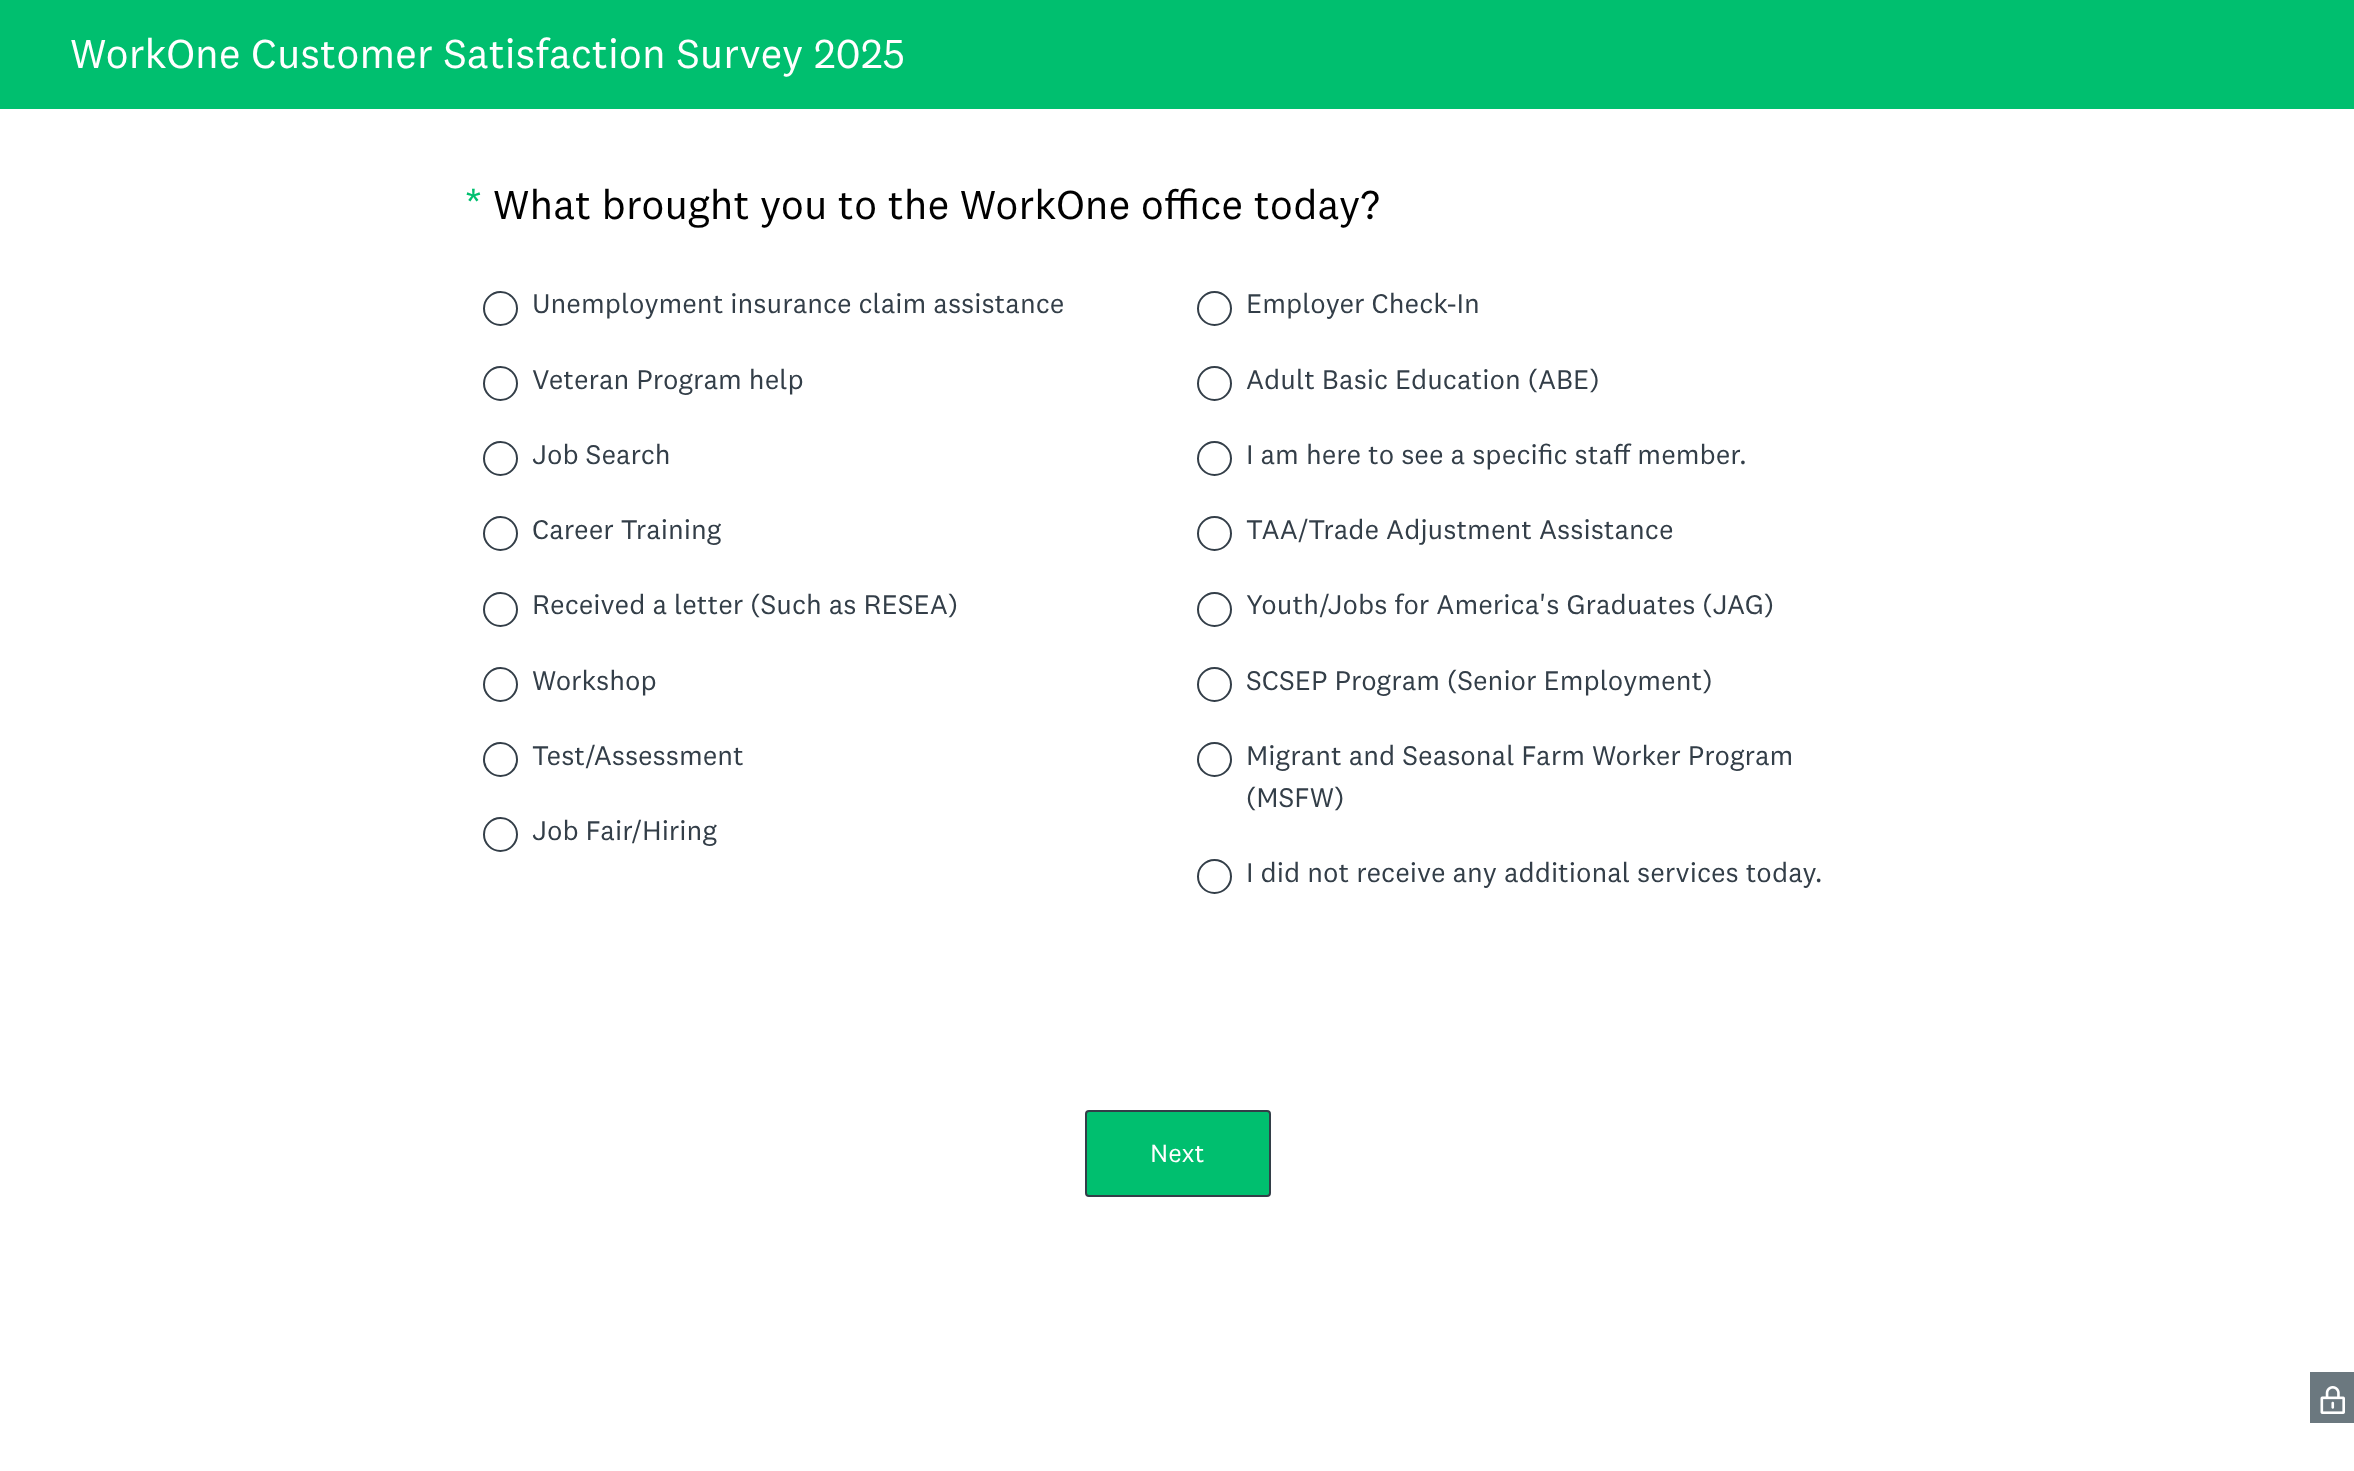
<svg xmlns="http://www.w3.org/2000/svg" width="2354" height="1471">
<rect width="100%" height="100%" fill="#fff"/>
<rect width="2354" height="109" fill="#00bf6f"/>
<text x="70" y="68" style="font-family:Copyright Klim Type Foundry;font-size:42px;fill:#fff">WorkOne Customer Satisfaction Survey 2025</text>
<text x="464" y="219" style="font-family:Copyright Klim Type Foundry;font-size:42px;fill:#00bf6f">*</text>
<text x="493" y="219" style="font-family:Copyright Klim Type Foundry;font-size:42px;fill:#000">What brought you to the WorkOne office today?</text>
<circle cx="500.5" cy="308.5" r="16.5" fill="none" stroke="#333e48" stroke-width="2"/>
<text x="532" y="313" style="font-family:Copyright Klim Type Foundry;font-size:28px;fill:#333e48">Unemployment insurance claim assistance</text>
<circle cx="500.5" cy="383.5" r="16.5" fill="none" stroke="#333e48" stroke-width="2"/>
<text x="532" y="389" style="font-family:Copyright Klim Type Foundry;font-size:28px;fill:#333e48">Veteran Program help</text>
<circle cx="500.5" cy="458.5" r="16.5" fill="none" stroke="#333e48" stroke-width="2"/>
<text x="532" y="464" style="font-family:Copyright Klim Type Foundry;font-size:28px;fill:#333e48">Job Search</text>
<circle cx="500.5" cy="533.5" r="16.5" fill="none" stroke="#333e48" stroke-width="2"/>
<text x="532" y="539" style="font-family:Copyright Klim Type Foundry;font-size:28px;fill:#333e48">Career Training</text>
<circle cx="500.5" cy="609.5" r="16.5" fill="none" stroke="#333e48" stroke-width="2"/>
<text x="532" y="614" style="font-family:Copyright Klim Type Foundry;font-size:28px;fill:#333e48">Received a letter (Such as RESEA)</text>
<circle cx="500.5" cy="684.5" r="16.5" fill="none" stroke="#333e48" stroke-width="2"/>
<text x="532" y="690" style="font-family:Copyright Klim Type Foundry;font-size:28px;fill:#333e48">Workshop</text>
<circle cx="500.5" cy="759.5" r="16.5" fill="none" stroke="#333e48" stroke-width="2"/>
<text x="532" y="765" style="font-family:Copyright Klim Type Foundry;font-size:28px;fill:#333e48">Test/Assessment</text>
<circle cx="500.5" cy="834.5" r="16.5" fill="none" stroke="#333e48" stroke-width="2"/>
<text x="532" y="840" style="font-family:Copyright Klim Type Foundry;font-size:28px;fill:#333e48">Job Fair/Hiring</text>
<circle cx="1214.5" cy="308.5" r="16.5" fill="none" stroke="#333e48" stroke-width="2"/>
<text x="1246" y="313" style="font-family:Copyright Klim Type Foundry;font-size:28px;fill:#333e48">Employer Check-In</text>
<circle cx="1214.5" cy="383.5" r="16.5" fill="none" stroke="#333e48" stroke-width="2"/>
<text x="1246" y="389" style="font-family:Copyright Klim Type Foundry;font-size:28px;fill:#333e48">Adult Basic Education (ABE)</text>
<circle cx="1214.5" cy="458.5" r="16.5" fill="none" stroke="#333e48" stroke-width="2"/>
<text x="1246" y="464" style="font-family:Copyright Klim Type Foundry;font-size:28px;fill:#333e48">I am here to see a specific staff member.</text>
<circle cx="1214.5" cy="533.5" r="16.5" fill="none" stroke="#333e48" stroke-width="2"/>
<text x="1246" y="539" style="font-family:Copyright Klim Type Foundry;font-size:28px;fill:#333e48">TAA/Trade Adjustment Assistance</text>
<circle cx="1214.5" cy="609.5" r="16.5" fill="none" stroke="#333e48" stroke-width="2"/>
<text x="1246" y="614" style="font-family:Copyright Klim Type Foundry;font-size:28px;fill:#333e48">Youth/Jobs for America's Graduates (JAG)</text>
<circle cx="1214.5" cy="684.5" r="16.5" fill="none" stroke="#333e48" stroke-width="2"/>
<text x="1246" y="690" style="font-family:Copyright Klim Type Foundry;font-size:28px;fill:#333e48">SCSEP Program (Senior Employment)</text>
<circle cx="1214.5" cy="759.5" r="16.5" fill="none" stroke="#333e48" stroke-width="2"/>
<text x="1246" y="765" style="font-family:Copyright Klim Type Foundry;font-size:28px;fill:#333e48">Migrant and Seasonal Farm Worker Program</text>
<text x="1246" y="807" style="font-family:Copyright Klim Type Foundry;font-size:28px;fill:#333e48">(MSFW)</text>
<circle cx="1214.5" cy="876.5" r="16.5" fill="none" stroke="#333e48" stroke-width="2"/>
<text x="1246" y="882" style="font-family:Copyright Klim Type Foundry;font-size:28px;fill:#333e48">I did not receive any additional services today.</text>
<rect x="1086" y="1111" width="184" height="85" rx="3" fill="#00bf6f" stroke="#333e48" stroke-width="2"/>
<text x="1150" y="1162" style="font-family:Copyright Klim Type Foundry;font-size:26px;fill:#fff">Next</text>
<rect x="2310" y="1372" width="44" height="51" fill="#6b787f"/>
<image x="2320" y="1386" width="25" height="28" href="media/1.png"/>
</svg>
